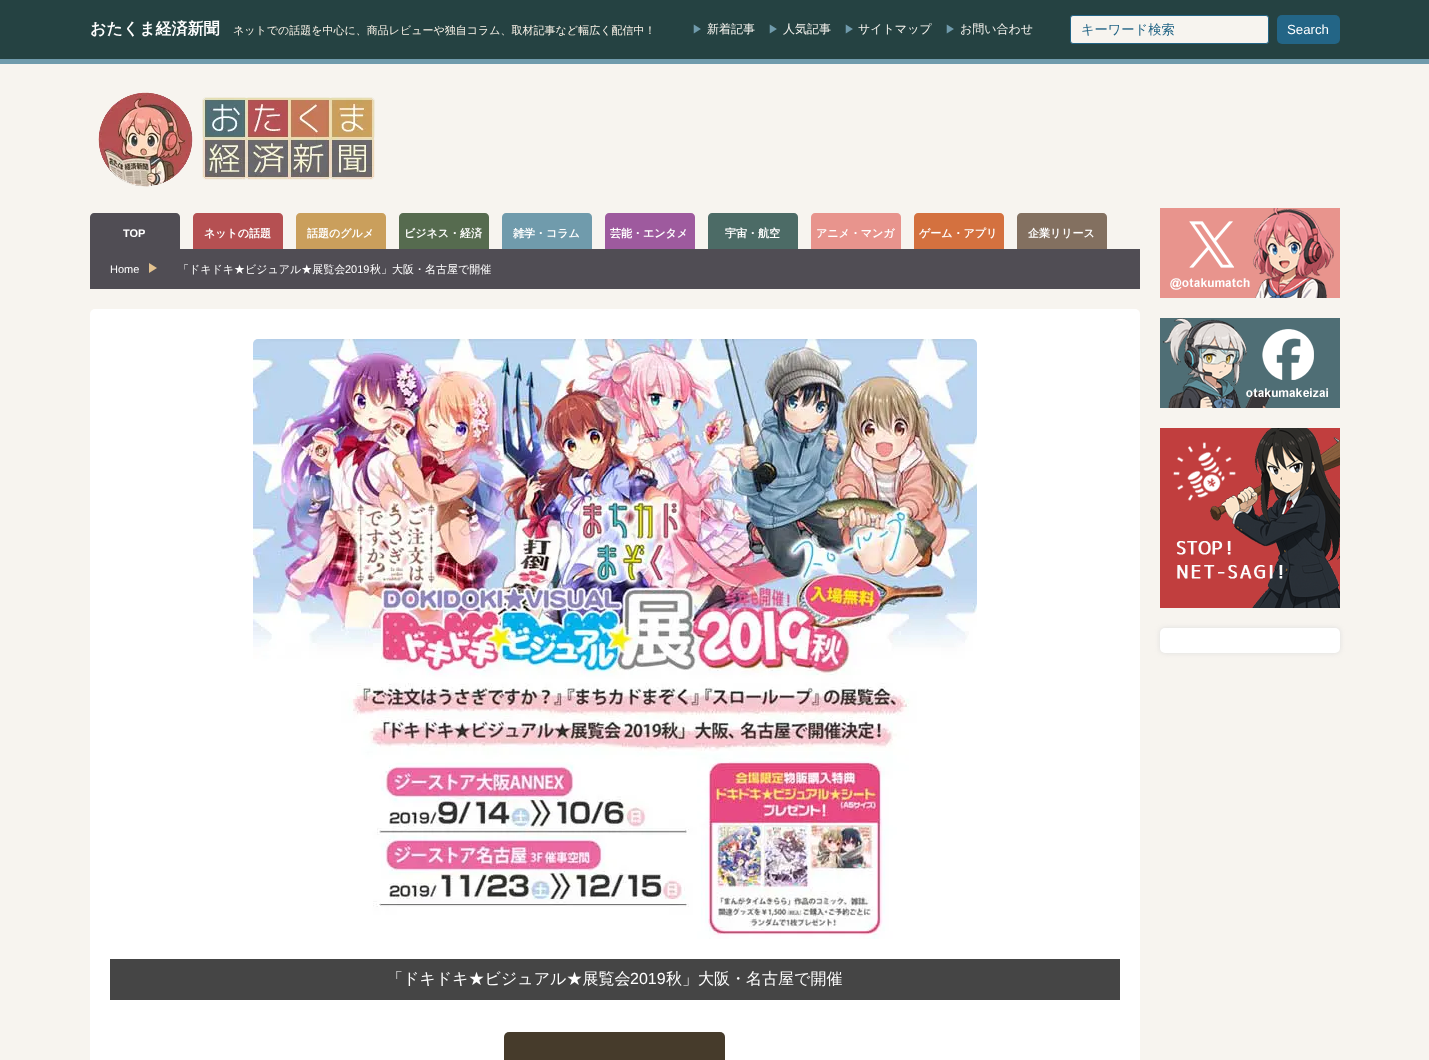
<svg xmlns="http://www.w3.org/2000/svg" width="1429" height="1060">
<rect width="100%" height="100%" fill="#f7f4ef"/>
<rect width="1429" height="59" fill="#254242"/>
<rect y="59" width="1429" height="5" fill="#709bac"/>
<text x="90" y="34" style="font-family:WenQuanYi Zen Hei;font-size:16px;font-weight:bold;fill:#fff">おたくま経済新聞</text>
<text x="233" y="34" style="font-family:WenQuanYi Zen Hei;font-size:11px;font-weight:500;fill:#fbf3e8">ネットでの話題を中心に、商品レビューや独自コラム、取材記事など幅広く配信中！</text>
<text x="692" y="33" style="font-family:WenQuanYi Zen Hei;font-size:11px;font-weight:500;fill:#709bac">▶</text>
<text x="707" y="33" style="font-family:WenQuanYi Zen Hei;font-size:12px;font-weight:500;fill:#f7f4ef">新着記事</text>
<text x="768" y="33" style="font-family:WenQuanYi Zen Hei;font-size:11px;font-weight:500;fill:#709bac">▶</text>
<text x="783" y="33" style="font-family:WenQuanYi Zen Hei;font-size:12px;font-weight:500;fill:#f7f4ef">人気記事</text>
<text x="844" y="33" style="font-family:WenQuanYi Zen Hei;font-size:11px;font-weight:500;fill:#709bac">▶</text>
<text x="858" y="33" style="font-family:WenQuanYi Zen Hei;font-size:12px;font-weight:500;fill:#f7f4ef">サイトマップ</text>
<text x="945" y="33" style="font-family:WenQuanYi Zen Hei;font-size:11px;font-weight:500;fill:#709bac">▶</text>
<text x="960" y="33" style="font-family:WenQuanYi Zen Hei;font-size:12px;font-weight:500;fill:#f7f4ef">お問い合わせ</text>
<rect x="1070.5" y="15.5" width="198" height="28" rx="2.5" fill="#f7f4ef" stroke="#236586"/>
<text x="1081" y="34" style="font-family:WenQuanYi Zen Hei;font-size:13.25px;font-weight:500;fill:#236586">キーワード検索</text>
<rect x="1277" y="15" width="63" height="29" rx="5" fill="#236586"/>
<text x="1287" y="34" style="font-family:Liberation Sans;font-size:13.25px;fill:#fff">Search</text>
<image x="98" y="92" width="277" height="95" href="media/1.png"/>
<path d="M94 213h82c2 0 4 2 4 4v32h-90v-32c0-2 2-4 4-4z" fill="#504d54"/>
<text x="123" y="237" style="font-family:Liberation Sans;font-size:11px;font-weight:bold;fill:#fff">TOP</text>
<path d="M197 213h82c2 0 4 2 4 4v32h-90v-32c0-2 2-4 4-4z" fill="#b55052"/>
<text x="204" y="237" style="font-family:WenQuanYi Zen Hei;font-size:11px;font-weight:bold;fill:#fff">ネットの話題</text>
<path d="M300 213h82c2 0 4 2 4 4v32h-90v-32c0-2 2-4 4-4z" fill="#ca9f5c"/>
<text x="307" y="237" style="font-family:WenQuanYi Zen Hei;font-size:11px;font-weight:bold;fill:#fff">話題のグルメ</text>
<path d="M403 213h82c2 0 4 2 4 4v32h-90v-32c0-2 2-4 4-4z" fill="#566b4f"/>
<text x="404" y="237" style="font-family:WenQuanYi Zen Hei;font-size:11px;font-weight:bold;fill:#fff">ビジネス・経済</text>
<path d="M506 213h82c2 0 4 2 4 4v32h-90v-32c0-2 2-4 4-4z" fill="#709bac"/>
<text x="513" y="237" style="font-family:WenQuanYi Zen Hei;font-size:11px;font-weight:bold;fill:#fff">雑学・コラム</text>
<path d="M609 213h82c2 0 4 2 4 4v32h-90v-32c0-2 2-4 4-4z" fill="#9e5a9e"/>
<text x="610" y="237" style="font-family:WenQuanYi Zen Hei;font-size:11px;font-weight:bold;fill:#fff">芸能・エンタメ</text>
<path d="M712 213h82c2 0 4 2 4 4v32h-90v-32c0-2 2-4 4-4z" fill="#4c6b66"/>
<text x="725" y="237" style="font-family:WenQuanYi Zen Hei;font-size:11px;font-weight:bold;fill:#fff">宇宙・航空</text>
<path d="M815 213h82c2 0 4 2 4 4v32h-90v-32c0-2 2-4 4-4z" fill="#e8948d"/>
<text x="816" y="237" style="font-family:WenQuanYi Zen Hei;font-size:11px;font-weight:bold;fill:#fff">アニメ・マンガ</text>
<path d="M918 213h82c2 0 4 2 4 4v32h-90v-32c0-2 2-4 4-4z" fill="#d4713f"/>
<text x="919" y="237" style="font-family:WenQuanYi Zen Hei;font-size:11px;font-weight:bold;fill:#fff">ゲーム・アプリ</text>
<path d="M1021 213h82c2 0 4 2 4 4v32h-90v-32c0-2 2-4 4-4z" fill="#837060"/>
<text x="1028" y="237" style="font-family:WenQuanYi Zen Hei;font-size:11px;font-weight:bold;fill:#fff">企業リリース</text>
<rect x="90" y="249" width="1050" height="40" fill="#504d54"/>
<text x="110" y="273" style="font-family:Liberation Sans;font-size:11px;fill:#fff">Home</text>
<path d="M149 273v-10l8 5z" fill="#e4c390"/>
<text x="178" y="273" style="font-family:WenQuanYi Zen Hei;font-size:11px;font-weight:500;fill:#fff">「ドキドキ★ビジュアル★展覧会</text>
<text x="345" y="273" style="font-family:Liberation Sans;font-size:11px;fill:#fff">2019</text>
<text x="370" y="273" style="font-family:WenQuanYi Zen Hei;font-size:11px;font-weight:500;fill:#fff">秋」大阪・名古屋で開催</text>
<rect x="90" y="309" width="1050" height="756" rx="5" fill="#fff"/>
<image x="253" y="339" width="724" height="600" href="media/2.png"/>
<rect x="110" y="959" width="1010" height="41" fill="#454545"/>
<text x="387" y="984" style="font-family:WenQuanYi Zen Hei;font-size:16px;font-weight:500;fill:#fff">「ドキドキ★ビジュアル★展覧会</text>
<text x="630" y="984" style="font-family:Liberation Sans;font-size:16px;fill:#fff">2019</text>
<text x="666" y="984" style="font-family:WenQuanYi Zen Hei;font-size:16px;font-weight:500;fill:#fff">秋」大阪・名古屋で開催</text>
<rect x="504" y="1032" width="221" height="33" rx="5" fill="#463b2b"/>
<image x="1160" y="208" width="180" height="90" href="media/3.png"/>
<image x="1160" y="318" width="180" height="90" href="media/4.png"/>
<image x="1160" y="428" width="180" height="180" href="media/5.png"/>
<rect x="1160" y="628" width="180" height="25" rx="5" fill="#ddd" filter="blur(2.5px)"/>
<rect x="1160" y="628" width="180" height="25" rx="5" fill="#fff"/>
</svg>
